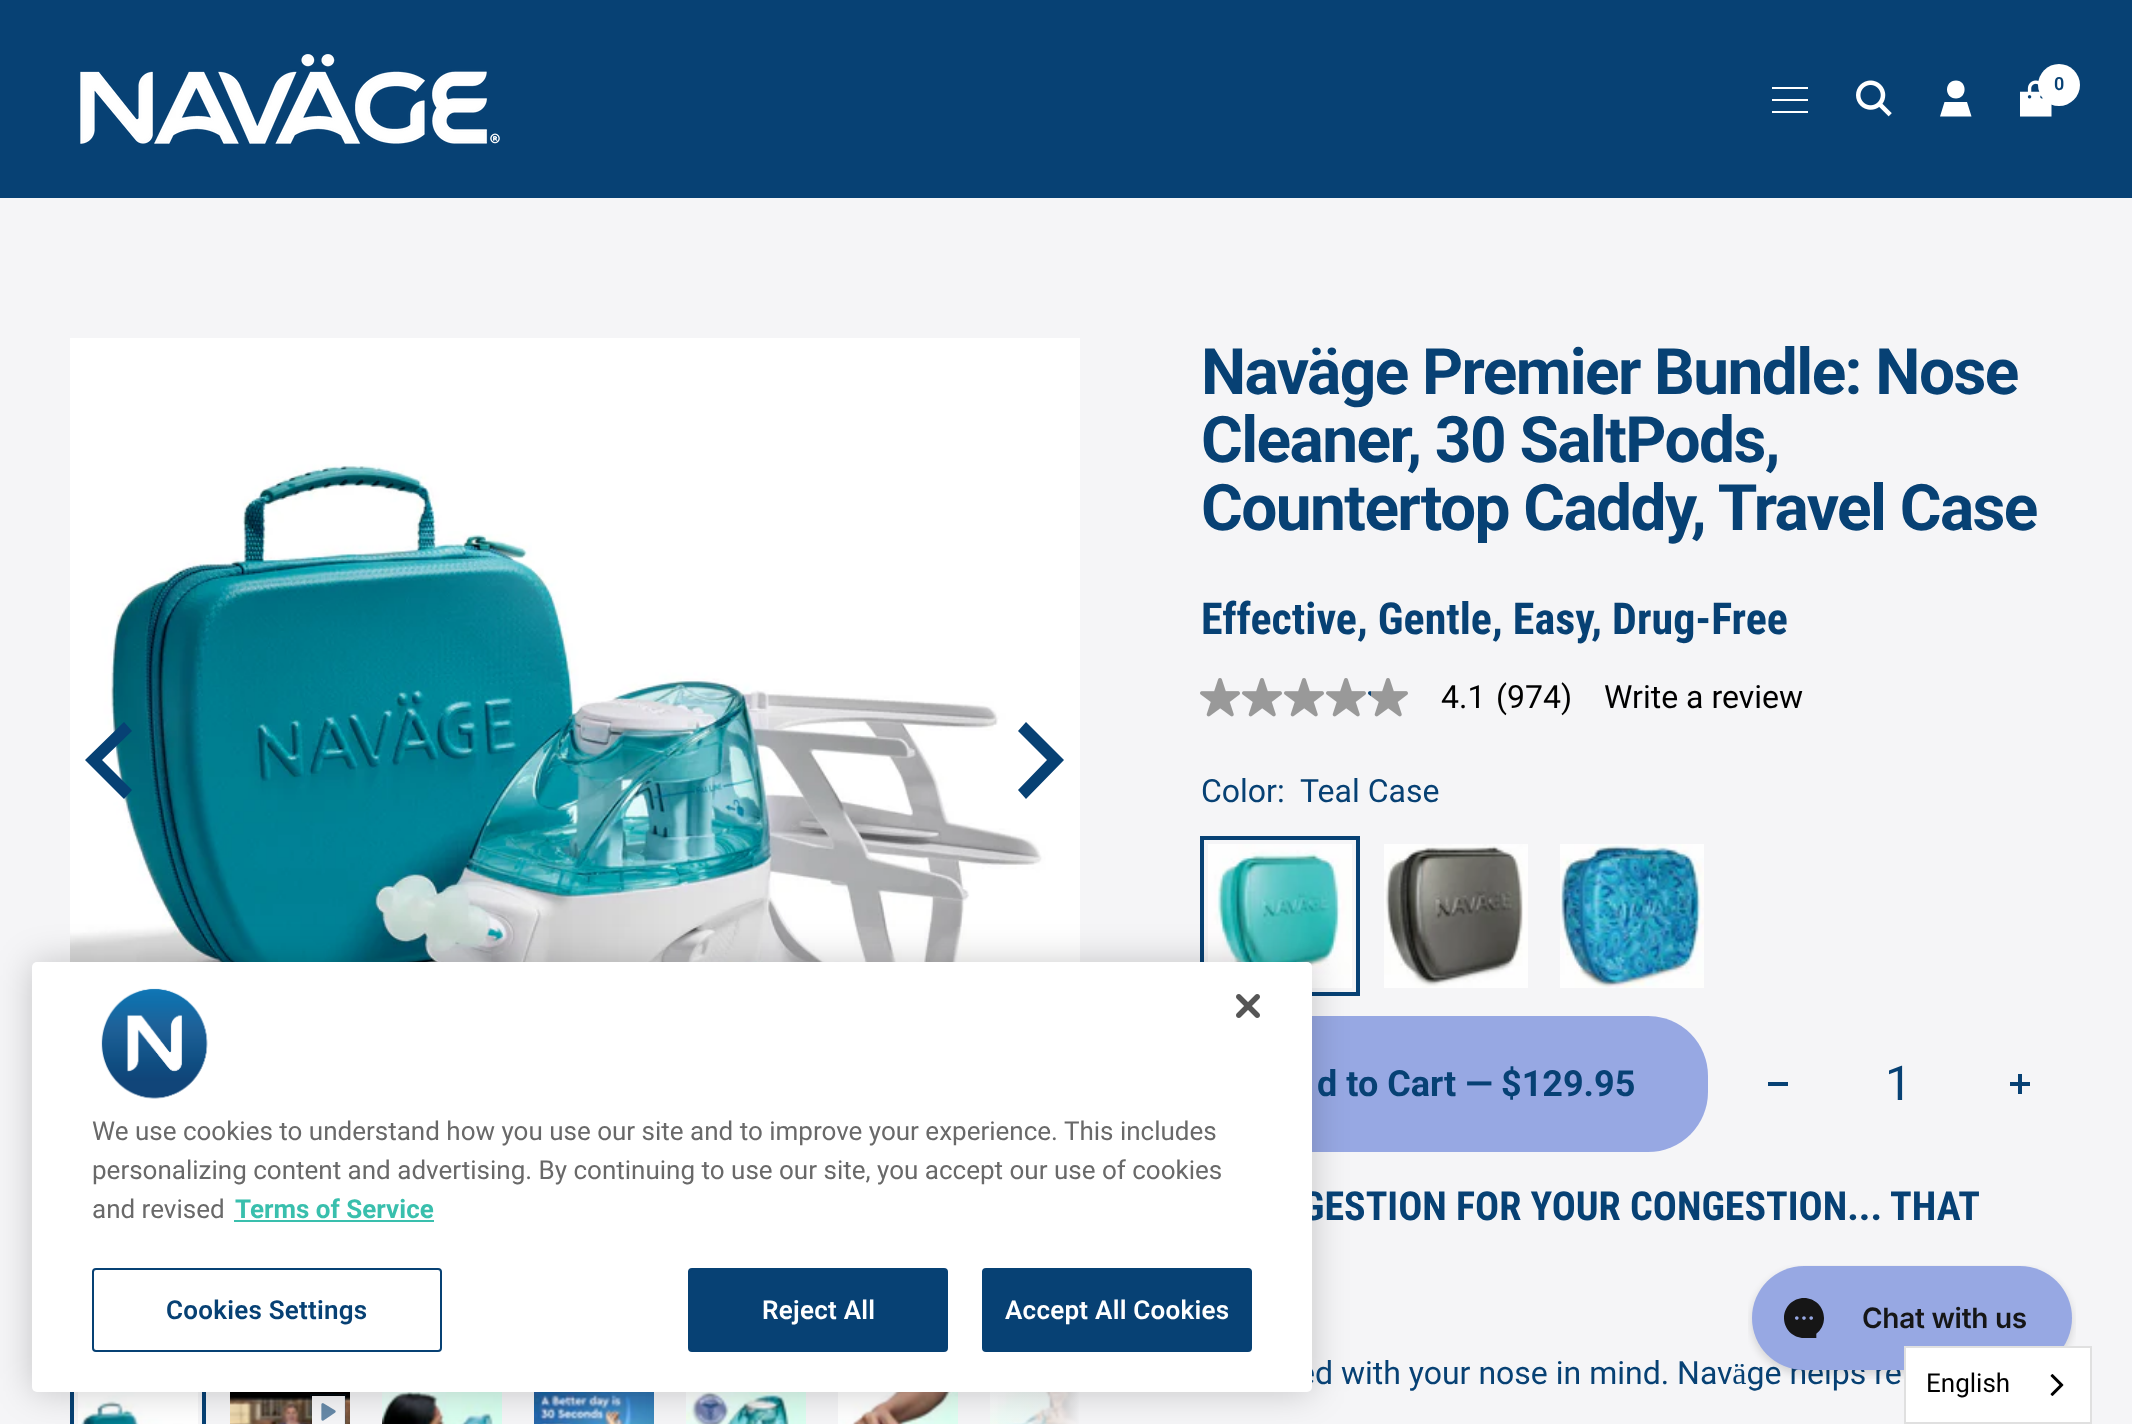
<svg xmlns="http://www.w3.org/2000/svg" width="2132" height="1424">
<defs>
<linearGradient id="g1" gradientUnits="userSpaceOnUse" x1="1080" y1="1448" x2="950" y2="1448"><stop offset="0" stop-color="#f5f5f7"/><stop offset="1" stop-color="#f5f5f7" stop-opacity="0"/></linearGradient>
</defs>
<rect width="100%" height="100%" fill="#f5f5f7"/>
<rect width="2132" height="198" fill="#074174"/>
<image x="80" y="54" width="420" height="90" href="media/1.png"/>
<path d="M1772 88h36m-36 24h36zm0-12h36z" fill="none" stroke="#fff" stroke-width="2"/>
<image x="1856" y="80" width="36" height="37" href="media/2.png"/>
<path d="M1956 98.5c-12 0-12-18 0-18c11.5 0 11.5 18 0 18zm15.5 18h-31.5l4.5-14.5h22.5z" fill="#fff"/>
<image x="2020" y="80" width="32" height="37" href="media/3.png"/>
<circle cx="2059" cy="85" r="21" fill="#fff"/>
<text x="2054" y="90" style="font-family:Roboto;font-size:18px;font-weight:600;fill:#074174">0</text>
<image x="70" y="338" width="1010" height="624" href="media/6.png"/>
<image x="78" y="1392" width="120" height="32" href="media/7.png"/>
<rect x="72" y="1382" width="132" height="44" fill="none" stroke="#074174" stroke-width="4"/>
<image x="230" y="1392" width="120" height="32" href="media/8.png"/>
<image x="310" y="1394" width="36" height="30" href="media/9.png"/>
<image x="382" y="1392" width="120" height="32" href="media/10.png"/>
<image x="534" y="1392" width="120" height="32" href="media/11.png"/>
<image x="686" y="1392" width="120" height="32" href="media/12.png"/>
<image x="838" y="1392" width="120" height="32" href="media/13.png"/>
<image x="990" y="1392" width="89" height="32" href="media/14.png"/>
<rect x="990" y="1392" width="89" height="32" fill="url(#g1)"/>
<image x="1208" y="844" width="144" height="144" href="media/17.png"/>
<rect x="1202" y="838" width="156" height="156" fill="none" stroke="#074174" stroke-width="4"/>
<rect x="1200" y="1016" width="508" height="136" rx="60" fill="#97a8e3"/>
<rect x="32" y="962" width="1280" height="430" rx="5" fill="#00000033" filter="blur(18px)"/>
<text x="1301" y="1220" style="font-family:Roboto Condensed;font-size:40px;font-weight:bold;fill:#074174">GESTION FOR YOUR CONGESTION... THAT</text>
<text x="1298" y="1384" style="font-family:Roboto;font-size:32px;fill:#074174">ed with your nose in mind. Naväge helps re</text>
<rect x="32" y="962" width="1280" height="430" rx="5" fill="#fff"/>
<image x="1236" y="994" width="24" height="24" href="media/4.png"/>
<image x="101" y="988" width="107" height="111" href="media/5.png"/>
<text x="92" y="1140" style="font-family:Roboto;font-size:26px;fill:#696969">We use cookies to understand how you use our site and to improve your experience. This includes</text>
<text x="92" y="1179" style="font-family:Roboto;font-size:26px;fill:#696969">personalizing content and advertising. By continuing to use our site, you accept our use of cookies</text>
<text x="92" y="1218" style="font-family:Roboto;font-size:26px;fill:#696969">and revised</text>
<text x="235" y="1218" style="font-family:Roboto;font-size:26px;font-weight:bold;fill:#39bfad">Terms of Service</text>
<rect x="234" y="1220" width="200" height="2" fill="#39bfad"/>
<rect x="93" y="1269" width="348" height="82" rx="3" fill="none" stroke="#074174" stroke-width="2"/>
<text x="166" y="1319" style="font-family:Roboto;font-size:26px;font-weight:600;letter-spacing:0.25px;fill:#074174">Cookies Settings</text>
<rect x="689" y="1269" width="258" height="82" rx="3" fill="#074174" stroke="#074174" stroke-width="2"/>
<text x="762" y="1319" style="font-family:Roboto;font-size:26px;font-weight:600;letter-spacing:0.25px;fill:#fff">Reject All</text>
<rect x="983" y="1269" width="268" height="82" rx="3" fill="#074174" stroke="#074174" stroke-width="2"/>
<text x="1005" y="1319" style="font-family:Roboto;font-size:26px;font-weight:600;letter-spacing:0.25px;fill:#fff">Accept All Cookies</text>
<path d="M85 760l39-38l8 9l-30 29l30 30l-8 9z" fill="#074174"/>
<path d="M1064 760l-38 39l-8-9l29-30l-29-29l8-9z" fill="#074174"/>
<text x="1201" y="394" style="font-family:Roboto;font-size:64px;font-weight:bold;letter-spacing:-1.6px;fill:#074174">Naväge Premier Bundle: Nose</text>
<text x="1201" y="462" style="font-family:Roboto;font-size:64px;font-weight:bold;letter-spacing:-1.6px;fill:#074174">Cleaner, 30 SaltPods,</text>
<text x="1201" y="530" style="font-family:Roboto;font-size:64px;font-weight:bold;letter-spacing:-1.6px;fill:#074174">Countertop Caddy, Travel Case</text>
<text x="1201" y="634" style="font-family:Roboto Condensed;font-size:44px;font-weight:bold;fill:#074174">Effective, Gentle, Easy, Drug-Free</text>
<image x="1200" y="678" width="40" height="39" href="media/15.png"/>
<image x="1242" y="678" width="40" height="39" href="media/15.png"/>
<image x="1284" y="678" width="40" height="39" href="media/15.png"/>
<image x="1326" y="678" width="40" height="39" href="media/15.png"/>
<image x="1368" y="678" width="40" height="39" href="media/16.png"/>
<text x="1441" y="708" style="font-family:Roboto;font-size:32px;fill:#000">4.1</text>
<text x="1496" y="708" style="font-family:Roboto;font-size:32px;fill:#000">(974)</text>
<text x="1604" y="708" style="font-family:Roboto;font-size:32px;fill:#000">Write a review</text>
<text x="1201" y="802" style="font-family:Roboto;font-size:32px;fill:#074174">Color:</text>
<text x="1300" y="802" style="font-family:Roboto;font-size:32px;fill:#074174">Teal Case</text>
<image x="1384" y="844" width="144" height="144" href="media/18.png"/>
<image x="1560" y="844" width="144" height="144" href="media/19.png"/>
<text x="1317" y="1096" style="font-family:Roboto;font-size:36px;font-weight:bold;fill:#074174">d to Cart —</text>
<text x="1501" y="1096" style="font-family:Roboto;font-size:36px;font-weight:bold;fill:#074174">$129.95</text>
<rect x="1768" y="1082" width="20" height="4" fill="#074174"/>
<text x="1885" y="1100" style="font-family:Roboto;font-size:48px;fill:#074174">1</text>
<image x="2010" y="1074" width="20" height="20" href="media/20.png"/>
<image x="1748" y="1265" width="328" height="114" href="media/21.png"/>
<rect x="1905" y="1347" width="186" height="76" fill="#fff" stroke="#e0e0e0" stroke-width="2"/>
<text x="1926" y="1392" style="font-family:Roboto;font-size:26px;fill:#000">English</text>
<image x="2050" y="1374" width="14" height="22" href="media/22.png"/>
</svg>
